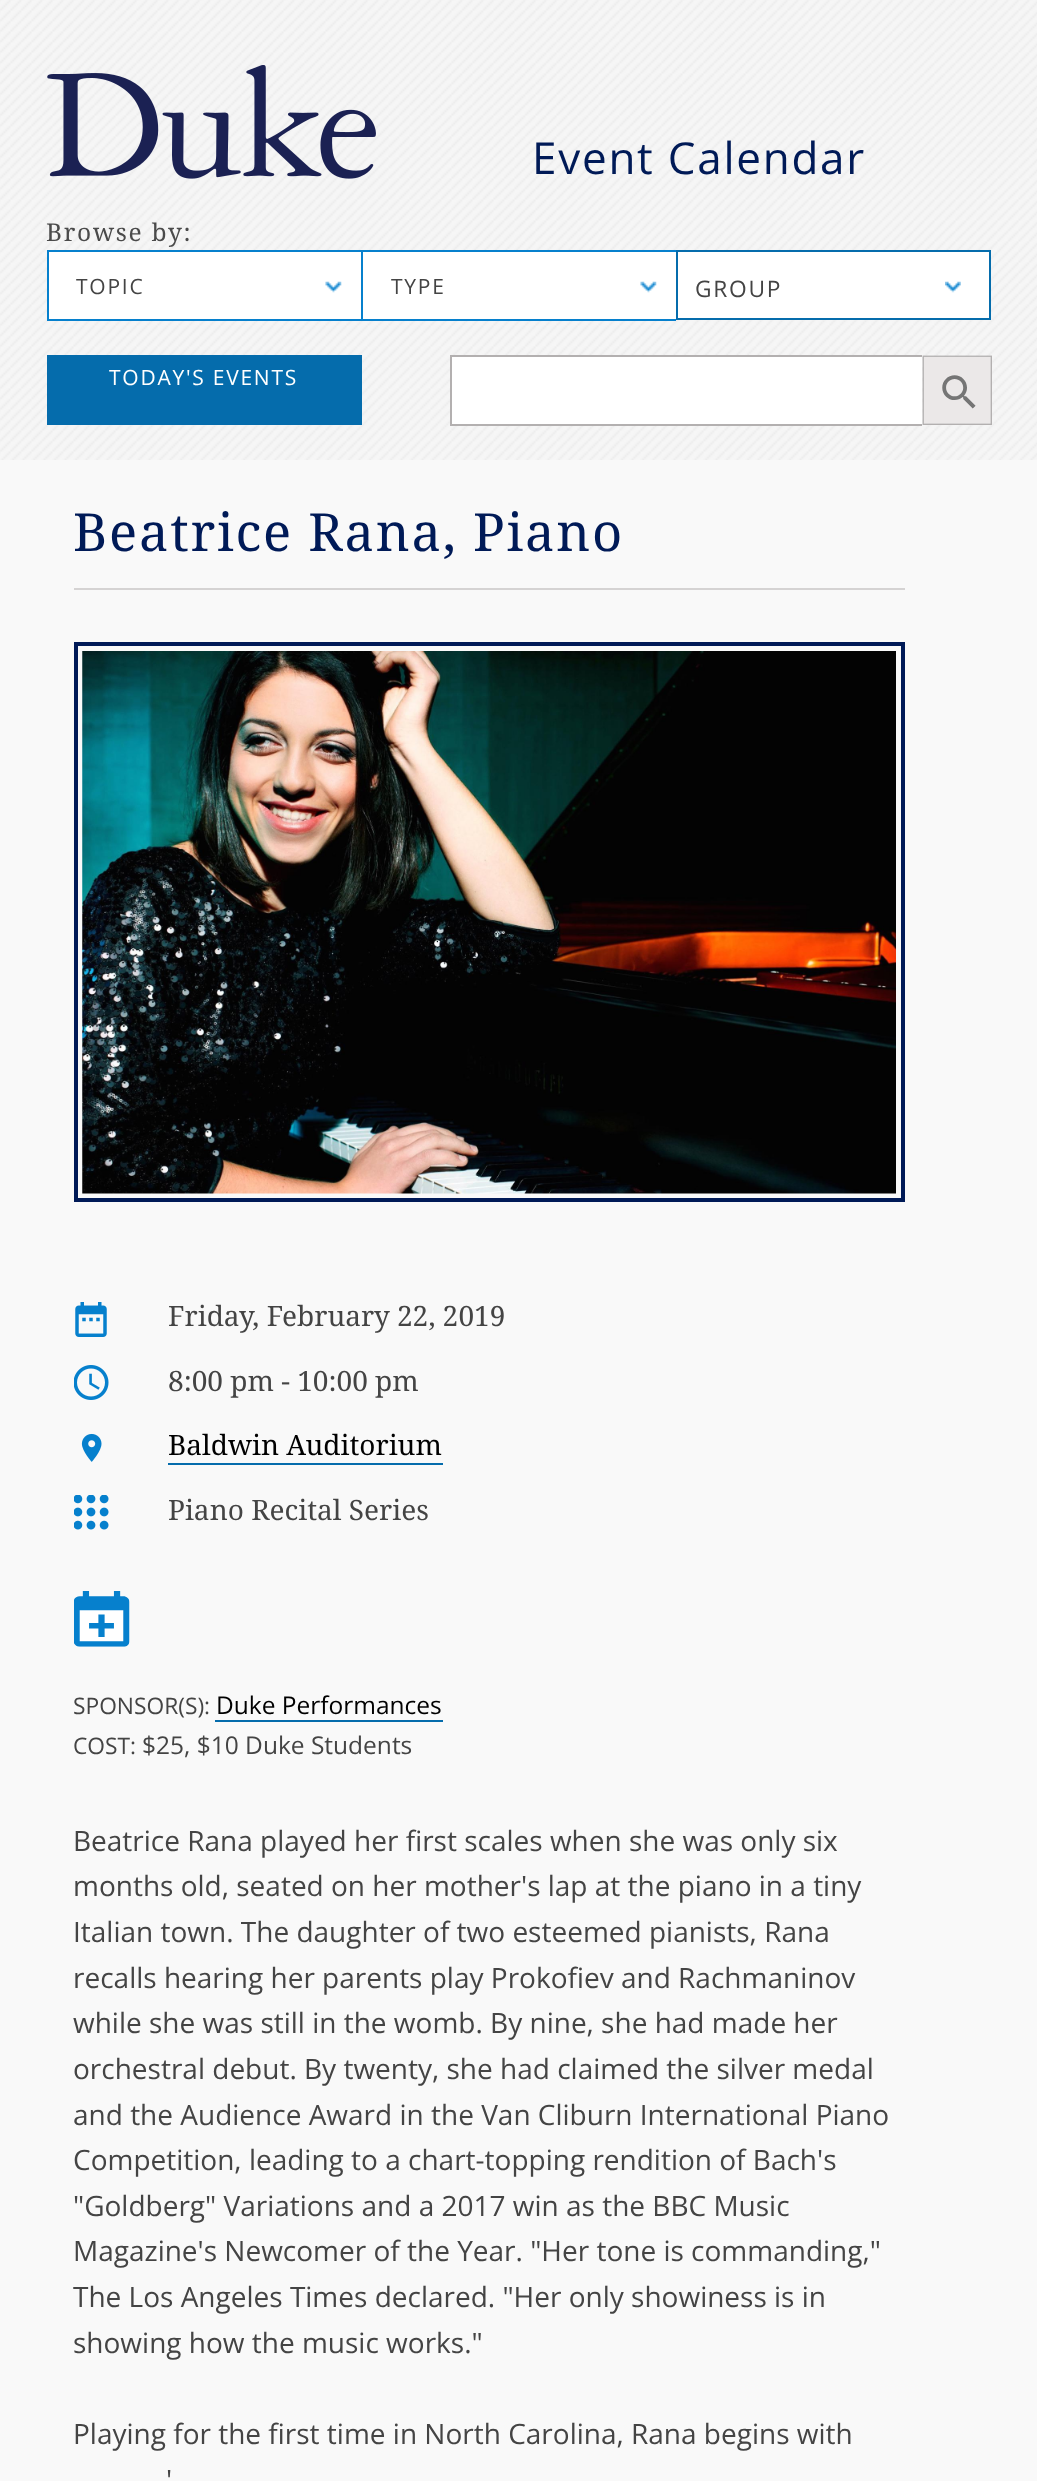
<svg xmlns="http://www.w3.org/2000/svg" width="1037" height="2481">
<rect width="100%" height="100%" fill="#fff"/>
<image x="0" y="0" width="1037" height="460" href="media/1.png"/>
<image x="47" y="65" width="329" height="114" href="media/2.png"/>
<text x="532" y="174" style="font-family:Open Sans;font-size:44px;letter-spacing:1.75px;fill:#001a57">Event Calendar</text>
<text x="46" y="241" style="font-family:Droid Serif;font-size:24.5px;letter-spacing:1.75px;fill:#4a4a4a">Browse by:</text>
<rect x="49" y="252" width="312" height="67" fill="#fff"/>
<rect x="47" y="250" width="629" height="2" fill="#0680cd"/>
<rect x="47" y="319" width="629" height="2" fill="#0680cd"/>
<rect x="47" y="250" width="2" height="70" fill="#0680cd"/>
<text x="76" y="294" style="font-family:Open Sans;font-size:21px;letter-spacing:1.75px;fill:#444">TOPIC</text>
<image x="325" y="281" width="17" height="12" href="media/3.png"/>
<rect x="363" y="252" width="313" height="67" fill="#fff"/>
<rect x="361" y="250" width="2" height="70" fill="#0680cd"/>
<text x="391" y="294" style="font-family:Open Sans;font-size:21px;letter-spacing:1.75px;fill:#444">TYPE</text>
<image x="640" y="281" width="17" height="12" href="media/3.png"/>
<rect x="677" y="251" width="313" height="68" fill="#fff" stroke="#056cac" stroke-width="2"/>
<image x="945" y="281" width="16" height="12" href="media/4.png"/>
<text x="695" y="297" style="font-family:Open Sans;font-size:22.75px;letter-spacing:1.75px;fill:#444">GROUP</text>
<rect x="47" y="355" width="315" height="70" fill="#056cac"/>
<text x="109" y="385" style="font-family:Open Sans;font-size:21px;letter-spacing:1.75px;fill:#fff">TODAY'S EVENTS</text>
<rect x="452" y="357" width="470" height="67" fill="#fff"/>
<rect x="450" y="355" width="472" height="2" fill="#b3b0b0"/>
<rect x="450" y="424" width="472" height="2" fill="#b3b0b0"/>
<rect x="450" y="355" width="2" height="70" fill="#b3b0b0"/>
<image x="922" y="355" width="70" height="70" href="media/5.png"/>
<rect y="460" width="1037" height="2021" fill="#f9f9f9"/>
<text x="73" y="551" style="font-family:Droid Serif;font-size:52.5px;letter-spacing:1.75px;fill:#001a57">Beatrice Rana, Piano</text>
<rect x="74" y="588" width="831" height="2" fill="#d5d3d3"/>
<rect x="76" y="644" width="827" height="556" fill="none" stroke="#001a57" stroke-width="4"/>
<image x="82" y="651" width="814" height="543" href="media/6.png"/>
<image x="75" y="1302" width="32" height="35" href="media/7.png"/>
<text x="168" y="1326" style="font-family:Droid Serif;font-size:28px;fill:#444">Friday, February 22, 2019</text>
<image x="74" y="1365" width="35" height="35" href="media/8.png"/>
<text x="168" y="1391" style="font-family:Droid Serif;font-size:28px;fill:#444">8:00 pm - 10:00 pm</text>
<image x="81" y="1433" width="21" height="29" href="media/9.png"/>
<text x="168" y="1455" style="font-family:Droid Serif;font-size:28px;fill:#000">Baldwin Auditorium</text>
<rect x="168" y="1463" width="275" height="2" fill="#056cac"/>
<image x="74" y="1495" width="35" height="35" href="media/10.png"/>
<text x="168" y="1520" style="font-family:Droid Serif;font-size:28px;fill:#444">Piano Recital Series</text>
<image x="74" y="1591" width="56" height="56" href="media/11.png"/>
<text x="73" y="1714" style="font-family:Open Sans;font-size:22.75px;fill:#444">SPONSOR(S):</text>
<text x="216" y="1714" style="font-family:Open Sans;font-size:24.5px;fill:#000">Duke Performances</text>
<rect x="215" y="1720" width="228" height="2" fill="#056cac"/>
<text x="73" y="1754" style="font-family:Open Sans;font-size:22.75px;fill:#444">COST:</text>
<text x="142" y="1754" style="font-family:Open Sans;font-size:24.5px;fill:#444">$25, $10 Duke Students</text>
<text x="73" y="1851" style="font-family:Open Sans;font-size:28px;fill:#444">Beatrice Rana played her first scales when she was only six</text>
<text x="73" y="1896" style="font-family:Open Sans;font-size:28px;fill:#444">months old, seated on her mother's lap at the piano in a tiny</text>
<text x="73" y="1942" style="font-family:Open Sans;font-size:28px;fill:#444">Italian town. The daughter of two esteemed pianists, Rana</text>
<text x="73" y="1988" style="font-family:Open Sans;font-size:28px;fill:#444">recalls hearing her parents play Prokofiev and Rachmaninov</text>
<text x="73" y="2033" style="font-family:Open Sans;font-size:28px;fill:#444">while she was still in the womb. By nine, she had made her</text>
<text x="73" y="2079" style="font-family:Open Sans;font-size:28px;fill:#444">orchestral debut. By twenty, she had claimed the silver medal</text>
<text x="73" y="2125" style="font-family:Open Sans;font-size:28px;fill:#444">and the Audience Award in the Van Cliburn International Piano</text>
<text x="73" y="2170" style="font-family:Open Sans;font-size:28px;fill:#444">Competition, leading to a chart-topping rendition of Bach's</text>
<text x="73" y="2216" style="font-family:Open Sans;font-size:28px;fill:#444">"Goldberg" Variations and a 2017 win as the BBC Music</text>
<text x="73" y="2261" style="font-family:Open Sans;font-size:28px;fill:#444">Magazine's Newcomer of the Year. "Her tone is commanding,"</text>
<text x="73" y="2307" style="font-family:Open Sans;font-size:28px;fill:#444">The Los Angeles Times declared. "Her only showiness is in</text>
<text x="73" y="2353" style="font-family:Open Sans;font-size:28px;fill:#444">showing how the music works."</text>
<text x="73" y="2444" style="font-family:Open Sans;font-size:28px;fill:#444">Playing for the first time in North Carolina, Rana begins with</text>
<text x="166" y="2490" style="font-family:Open Sans;font-size:28px;fill:#444">'</text>
</svg>
